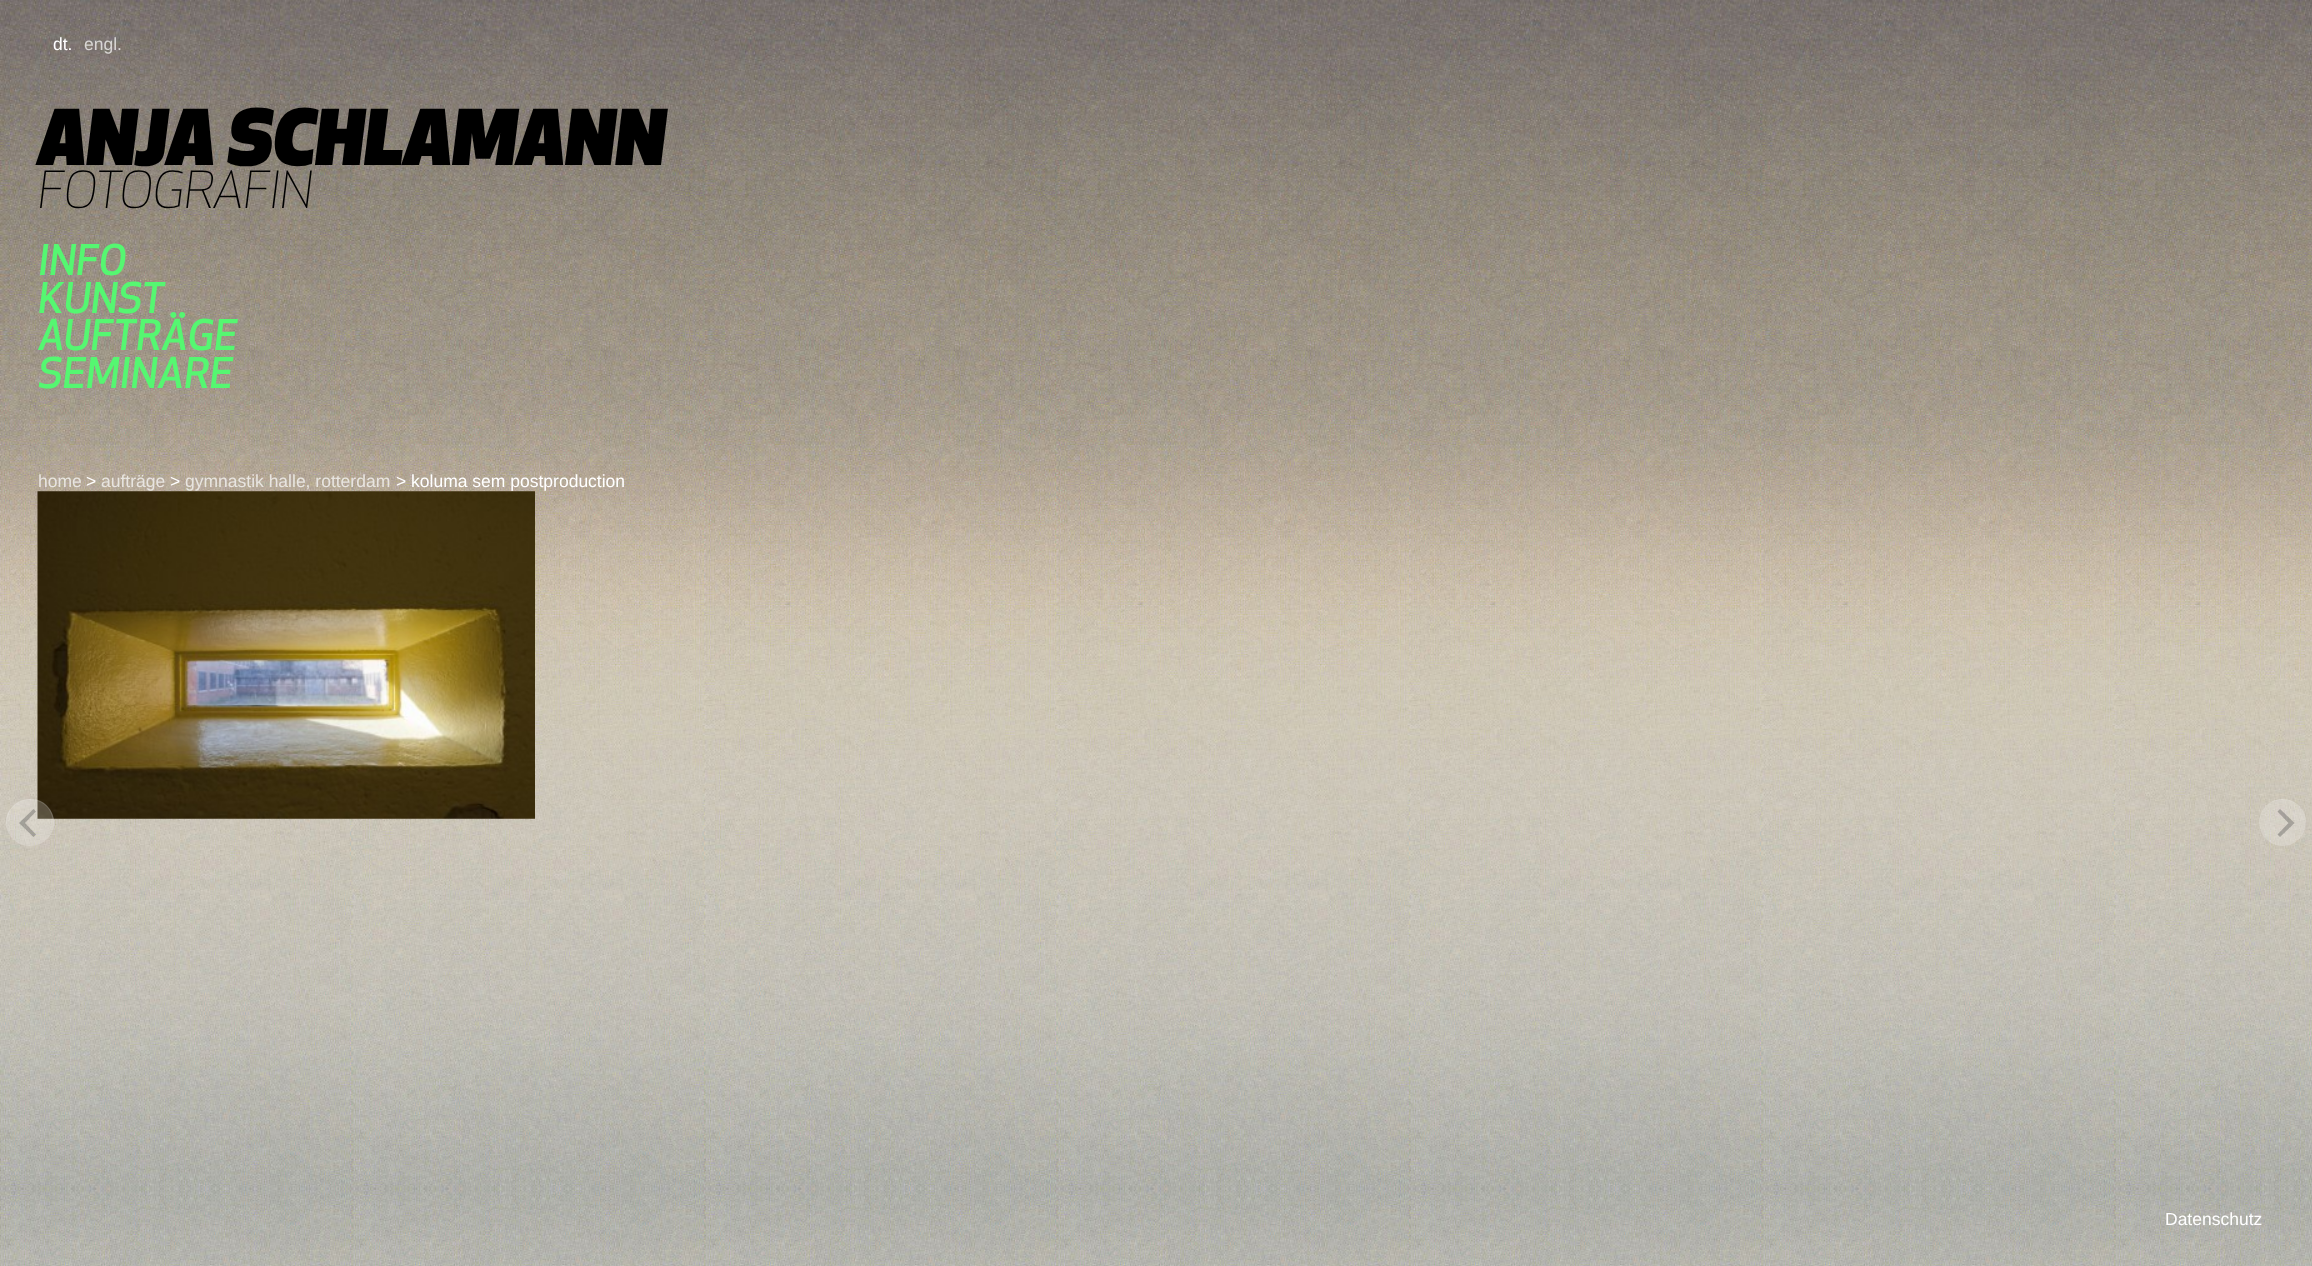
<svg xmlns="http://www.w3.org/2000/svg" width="2312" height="1266">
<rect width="100%" height="100%" fill="#fff"/>
<image x="0" y="0" width="2312" height="1266" href="media/1.png"/>
<text x="53" y="50" style="font-family:Liberation Sans;font-size:17.5px;fill:#fff">dt.</text>
<text x="84" y="50" style="font-family:Liberation Sans;font-size:17.5px;fill:#d8d6d4">engl.</text>
<text x="38" y="165" style="font-family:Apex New;font-size:75px;font-weight:bold;font-style:italic;fill:#000">ANJA SCHLAMANN</text>
<text x="38" y="208" style="font-family:Apex New;font-size:50px;font-weight:500;font-style:italic;fill:#000">FOTOGRAFIN</text>
<text x="38" y="275" style="font-family:Apex New;font-size:41.25px;font-weight:600;font-style:italic;fill:#55f771">INFO</text>
<text x="38" y="313" style="font-family:Apex New;font-size:41.25px;font-weight:600;font-style:italic;fill:#55f771">KUNST</text>
<text x="38" y="350" style="font-family:Apex New;font-size:41.25px;font-weight:600;font-style:italic;fill:#55f771">AUFTRÄGE</text>
<text x="38" y="388" style="font-family:Apex New;font-size:41.25px;font-weight:600;font-style:italic;fill:#55f771">SEMINARE</text>
<text x="38" y="487" style="font-family:Liberation Sans;font-size:17.5px;fill:#e8e5e0">home</text>
<text x="86" y="487" style="font-family:Liberation Sans;font-size:17.5px;fill:#fff">&gt;</text>
<text x="101" y="487" style="font-family:Liberation Sans;font-size:17.5px;fill:#e8e5e0">aufträge</text>
<text x="170" y="487" style="font-family:Liberation Sans;font-size:17.5px;fill:#fff">&gt;</text>
<text x="185" y="487" style="font-family:Liberation Sans;font-size:17.5px;fill:#e8e5e0">gymnastik halle, rotterdam</text>
<text x="396" y="487" style="font-family:Liberation Sans;font-size:17.5px;fill:#fff">&gt; koluma sem postproduction</text>
<image x="37" y="491" width="498" height="328" href="media/2.png"/>
<rect x="6" y="799" width="48" height="47" rx="23.5" fill="#ffffff38"/>
<path d="M30 800c19 0 26 18 22 32c3-6 3-13 0-19c-12-28-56-10-44 19c-4-14 3-32 22-32z" fill="#ffffff26"/>
<path d="M19 823l14.5 14l2.5-2.5l-11-11.5l11-11.5l-2.5-2.5z" fill="#3333334d"/>
<circle cx="2282.5" cy="822.5" r="23.5" fill="#ffffff38"/>
<path d="M2282 800c16 0 24 11 24 23c1-28-40-33-46-6c2-9 9-17 22-17z" fill="#ffffff26"/>
<path d="M2294.5 823l-14.5-14l-2.5 2.5l11 11.5l-11 11.5l2.5 2.5z" fill="#3333334d"/>
<text x="2165" y="1225" style="font-family:Liberation Sans;font-size:17.5px;fill:#fff">Datenschutz</text>
</svg>
